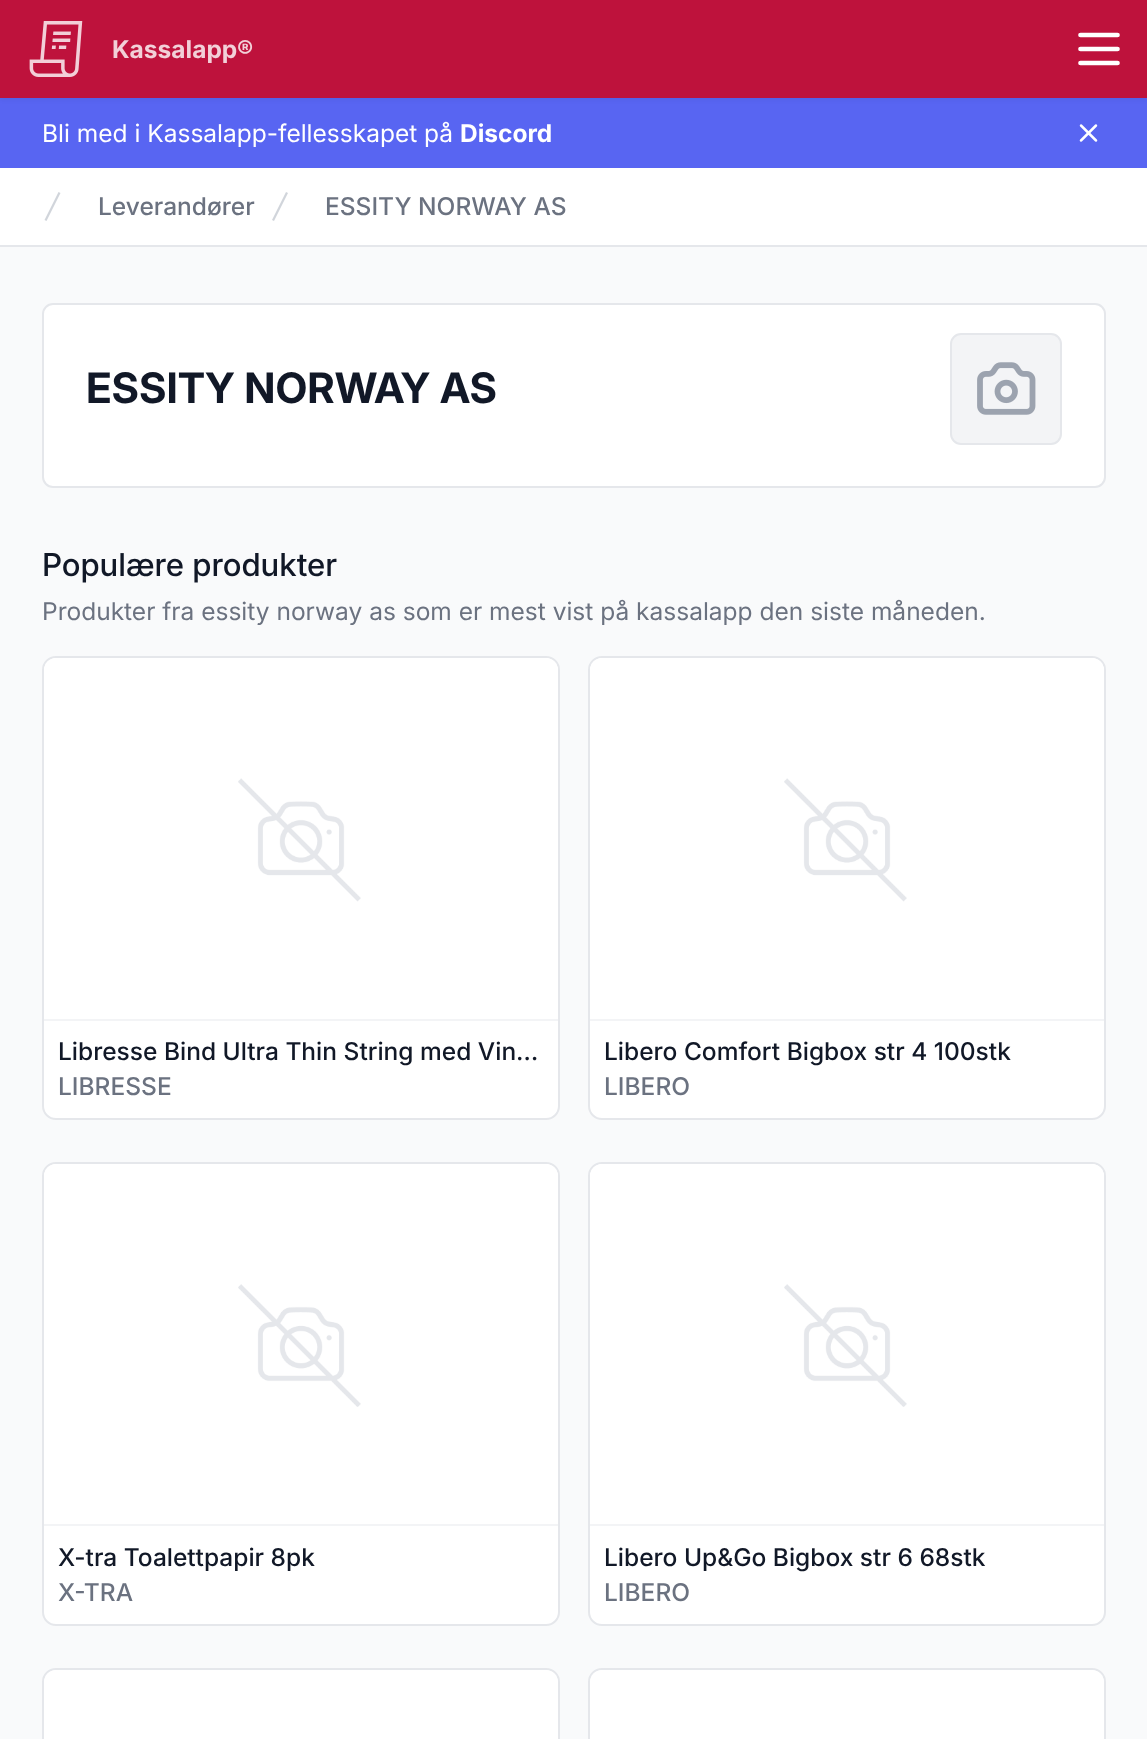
<svg xmlns="http://www.w3.org/2000/svg" width="1147" height="1739">
<rect width="100%" height="100%" fill="#f9fafb"/>
<rect y="98" width="1147" height="70" fill="#5865f2"/>
<rect y="2" width="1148" height="98" fill="#0000000d" filter="blur(2px)"/>
<rect width="1147" height="98" fill="#be123c"/>
<image x="29" y="21" width="54" height="56" href="media/1.png"/>
<text x="112" y="58" style="font-family:'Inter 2';font-size:24.5px;font-weight:bold;fill:#f2d0d8">Kassalapp®</text>
<path d="M1080.5 35h37m-37 14h37m-37 14h37" fill="none" stroke="#fff" stroke-width="4.7" stroke-linecap="round" stroke-linejoin="round"/>
<rect y="168" width="1147" height="77" fill="#fff"/>
<rect y="245" width="1147" height="2" fill="#e5e7eb"/>
<path d="M44.5 220l14-28l2 1l-14 28z" fill="#d1d5db"/>
<text x="98" y="215" style="font-family:'Inter 2';font-size:24.5px;font-weight:500;fill:#6b7280">Leverandører</text>
<path d="M272 220l14-28l2 1l-14 28z" fill="#d1d5db"/>
<text x="325" y="215" style="font-family:'Inter 2';font-size:24.5px;font-weight:500;fill:#6b7280">ESSITY NORWAY AS</text>
<rect x="43" y="304" width="1062" height="183" rx="10" fill="#fff" stroke="#e5e7eb" stroke-width="2"/>
<text x="86" y="403" style="font-family:Inter;font-size:42px;font-weight:bold;fill:#111827">ESSITY NORWAY AS</text>
<rect x="951" y="334" width="110" height="110" rx="10" fill="#f3f4f6" stroke="#e5e7eb" stroke-width="2"/>
<image x="977" y="362" width="59" height="53" href="media/2.png"/>
<text x="42" y="576" style="font-family:Inter;font-size:31.5px;font-weight:500;fill:#111827">Populære produkter</text>
<text x="42" y="620" style="font-family:Inter;font-size:24.5px;fill:#6b7280">Produkter fra essity norway as som er mest vist på kassalapp den siste måneden.</text>
<rect x="43" y="657" width="516" height="462" rx="13" fill="#fff" stroke="#e5e7eb" stroke-width="2"/>
<path d="M56 658h490c6.5 0 12 5.5 12 12v349h-514v-349c0-6.5 5.5-12 12-12z" fill="#fff"/>
<image x="238" y="778" width="123" height="124" href="media/3.png"/>
<rect x="44" y="1019" width="514" height="2" fill="#f3f4f6"/>
<text x="58" y="1060" style="font-family:'Inter 2';font-size:24.5px;font-weight:500;fill:#111827">Libresse Bind Ultra Thin String med Vin…</text>
<text x="58" y="1095" style="font-family:'Inter 2';font-size:24.5px;font-weight:500;fill:#6b7280">LIBRESSE</text>
<rect x="589" y="657" width="516" height="462" rx="13" fill="#fff" stroke="#e5e7eb" stroke-width="2"/>
<path d="M602 658h490c6.5 0 12 5.5 12 12v349h-514v-349c0-6.5 5.5-12 12-12z" fill="#fff"/>
<image x="784" y="778" width="123" height="124" href="media/3.png"/>
<rect x="590" y="1019" width="514" height="2" fill="#f3f4f6"/>
<text x="604" y="1060" style="font-family:'Inter 2';font-size:24.5px;font-weight:500;fill:#111827">Libero Comfort Bigbox str 4 100stk</text>
<text x="604" y="1095" style="font-family:'Inter 2';font-size:24.5px;font-weight:500;fill:#6b7280">LIBERO</text>
<rect x="43" y="1163" width="516" height="462" rx="13" fill="#fff" stroke="#e5e7eb" stroke-width="2"/>
<path d="M56 1164h490c6.5 0 12 5.5 12 12v348h-514v-348c0-6.5 5.5-12 12-12z" fill="#fff"/>
<image x="238" y="1284" width="123" height="123" href="media/4.png"/>
<rect x="44" y="1524" width="514" height="2" fill="#f3f4f6"/>
<text x="58" y="1566" style="font-family:'Inter 2';font-size:24.5px;font-weight:500;fill:#111827">X-tra Toalettpapir 8pk</text>
<text x="58" y="1601" style="font-family:'Inter 2';font-size:24.5px;font-weight:500;fill:#6b7280">X-TRA</text>
<rect x="589" y="1163" width="516" height="462" rx="13" fill="#fff" stroke="#e5e7eb" stroke-width="2"/>
<path d="M602 1164h490c6.5 0 12 5.5 12 12v348h-514v-348c0-6.5 5.5-12 12-12z" fill="#fff"/>
<image x="784" y="1284" width="123" height="123" href="media/4.png"/>
<rect x="590" y="1524" width="514" height="2" fill="#f3f4f6"/>
<text x="604" y="1566" style="font-family:'Inter 2';font-size:24.5px;font-weight:500;fill:#111827">Libero Up&amp;Go Bigbox str 6 68stk</text>
<text x="604" y="1601" style="font-family:'Inter 2';font-size:24.5px;font-weight:500;fill:#6b7280">LIBERO</text>
<rect x="43" y="1669" width="516" height="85" rx="13" fill="none" stroke="#e5e7eb" stroke-width="2"/>
<path d="M56 1670h490c6.5 0 12 5.5 12 12v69h-514v-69c0-6.5 5.5-12 12-12z" fill="#fff"/>
<rect x="589" y="1669" width="516" height="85" rx="13" fill="none" stroke="#e5e7eb" stroke-width="2"/>
<path d="M602 1670h490c6.5 0 12 5.5 12 12v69h-514v-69c0-6.5 5.5-12 12-12z" fill="#fff"/>
<text x="42" y="142" style="font-family:Inter;font-size:24.5px;fill:#fff">Bli med i Kassalapp-fellesskapet på</text>
<text x="460" y="142" style="font-family:'Inter 2';font-size:24.5px;font-weight:bold;fill:#fff">Discord</text>
<image x="1079" y="124" width="19" height="18" href="media/5.png"/>
</svg>
